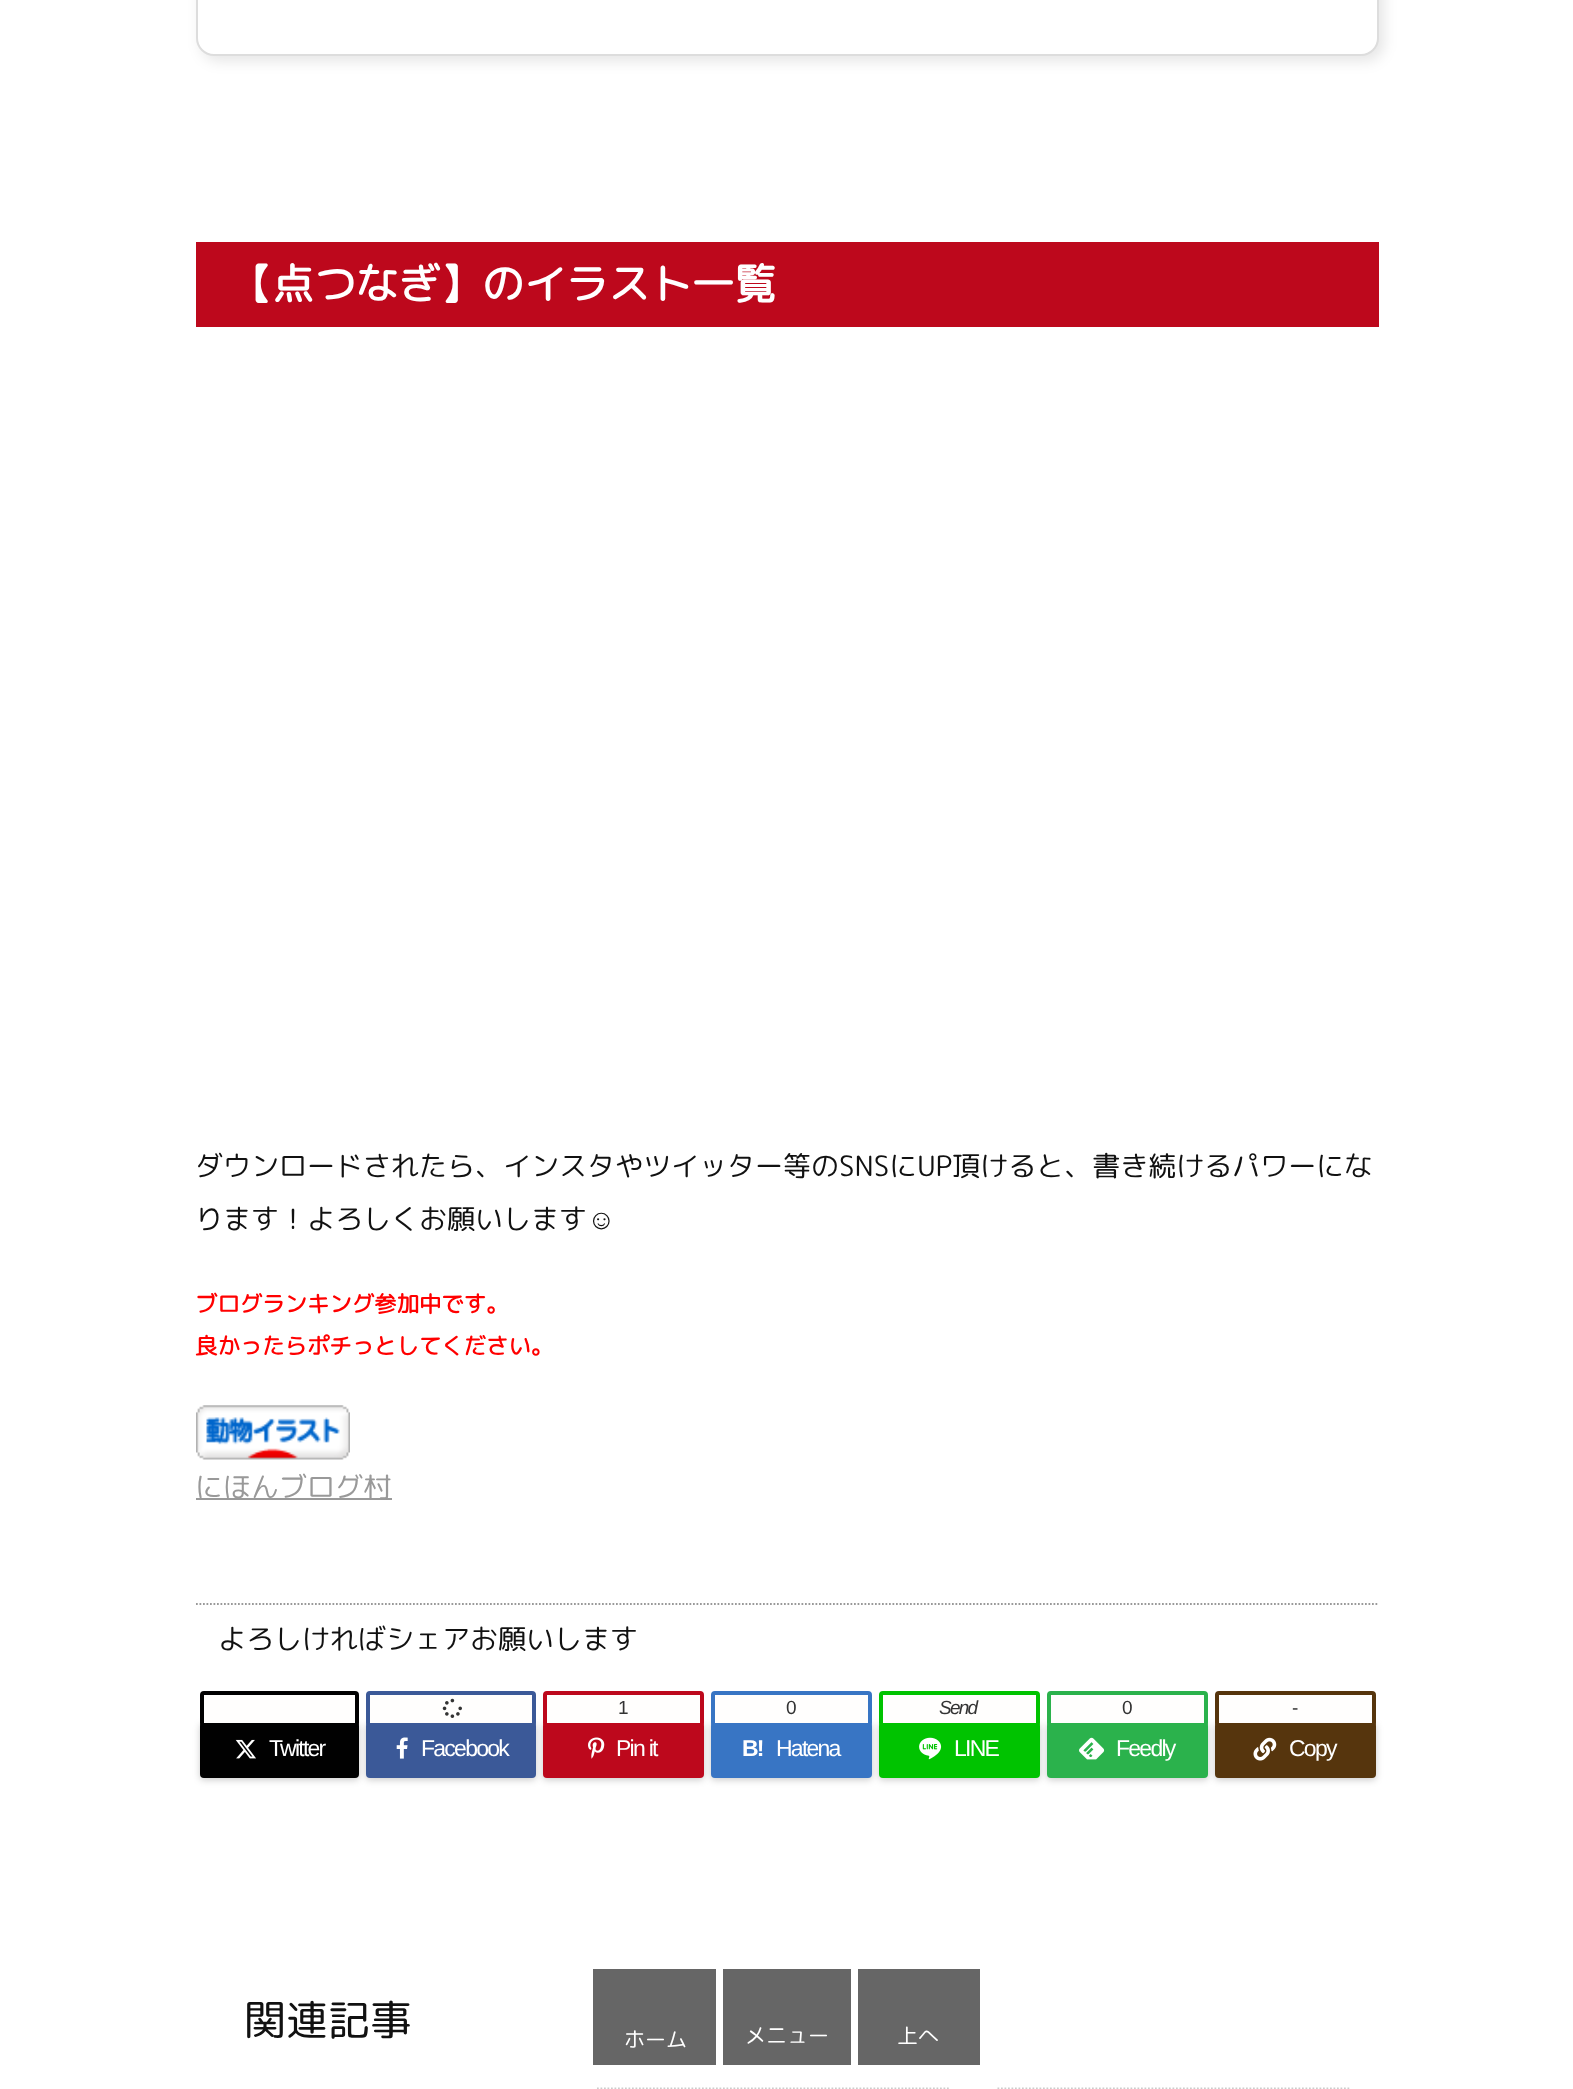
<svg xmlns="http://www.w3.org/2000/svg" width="1573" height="2089">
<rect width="100%" height="100%" fill="#fff"/>
<rect x="201" y="-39" width="1183" height="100" rx="18" fill="#0000001a" filter="blur(7px)"/>
<rect x="197" y="-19" width="1181" height="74" rx="17" fill="#fff" stroke="#ddd" stroke-width="2"/>
<rect x="196" y="242" width="1183" height="85" fill="#bd081c"/>
<text x="230" y="299" style="font-family:'Rounded Mplus 1c';font-size:42px;font-weight:bold;fill:#fff">【点つなぎ】のイラスト一覧</text>
<text x="195" y="1176" style="font-family:'Rounded Mplus 1c';font-size:28px;fill:#111">ダウンロードされたら、インスタやツイッター等のSNSにUP頂けると、書き続けるパワーにな</text>
<text x="195" y="1229" style="font-family:'Rounded Mplus 1c';font-size:28px;fill:#111">ります！よろしくお願いします</text>
<text x="587" y="1229" style="font-family:Liberation Sans;font-size:28px;fill:#111">☺</text>
<text x="195" y="1312" style="font-family:'Rounded Mplus 1c';font-size:22.4px;font-weight:bold;fill:#f00">ブログランキング参加中です。</text>
<text x="195" y="1354" style="font-family:'Rounded Mplus 1c';font-size:22.4px;font-weight:bold;fill:#f00">良かったらポチっとしてください。</text>
<image x="196" y="1405" width="154" height="55" href="media/1.png"/>
<rect x="196" y="1498" width="196" height="2" fill="#999"/>
<text x="195" y="1497" style="font-family:'Rounded Mplus 1c';font-size:28px;fill:#999">にほんブログ村</text>
<path d="M196 1604h1183" fill="none" stroke="#999" stroke-width="1.8" stroke-dasharray="1.75 1.75"/>
<text x="218" y="1649" style="font-family:'Rounded Mplus 1c';font-size:28px;fill:#111">よろしければシェアお願いします</text>
<rect x="200" y="1724" width="159" height="56" rx="4" fill="#00000033" filter="blur(3.5px)"/>
<rect x="200" y="1722" width="159" height="56" rx="4" fill="#010101"/>
<rect x="202" y="1693" width="155" height="32" rx="2" fill="#fffefd" stroke="#010101" stroke-width="4"/>
<image x="235" y="1739" width="21" height="20" href="media/2.png"/>
<text x="269" y="1756" style="font-family:Liberation Sans;font-size:23px;letter-spacing:-1.75px;fill:#fff">Twitter</text>
<rect x="366" y="1724" width="170" height="56" rx="4" fill="#00000033" filter="blur(3.5px)"/>
<rect x="366" y="1722" width="170" height="56" rx="4" fill="#3b5998"/>
<rect x="368" y="1693" width="166" height="32" rx="2" fill="#fffefd" stroke="#3b5998" stroke-width="4"/>
<image x="442" y="1698" width="20" height="20" href="media/3.png"/>
<image x="396" y="1737" width="12" height="22" href="media/4.png"/>
<text x="421" y="1756" style="font-family:Liberation Sans;font-size:23px;letter-spacing:-1.75px;fill:#fff">Facebook</text>
<rect x="543" y="1724" width="161" height="56" rx="4" fill="#00000033" filter="blur(3.5px)"/>
<rect x="543" y="1722" width="161" height="56" rx="4" fill="#bd081c"/>
<rect x="545" y="1693" width="157" height="32" rx="2" fill="#fffefd" stroke="#bd081c" stroke-width="4"/>
<text x="618" y="1714" style="font-family:Liberation Sans;font-size:19px;letter-spacing:-1.75px;fill:#333">1</text>
<image x="588" y="1737" width="17" height="22" href="media/5.png"/>
<text x="616" y="1756" style="font-family:Liberation Sans;font-size:23px;letter-spacing:-1.75px;fill:#fff">Pin it</text>
<rect x="711" y="1724" width="161" height="56" rx="4" fill="#00000033" filter="blur(3.5px)"/>
<rect x="711" y="1722" width="161" height="56" rx="4" fill="#3875c4"/>
<rect x="713" y="1693" width="157" height="32" rx="2" fill="#fffefd" stroke="#3875c4" stroke-width="4"/>
<text x="786" y="1714" style="font-family:Liberation Sans;font-size:19px;letter-spacing:-1.75px;fill:#333">0</text>
<text x="742" y="1756" style="font-family:Liberation Sans;font-size:23px;font-weight:bold;letter-spacing:-1.75px;fill:#fff">B!</text>
<text x="776" y="1756" style="font-family:Liberation Sans;font-size:23px;letter-spacing:-1.75px;fill:#fff">Hatena</text>
<rect x="879" y="1724" width="161" height="56" rx="4" fill="#00000033" filter="blur(3.5px)"/>
<rect x="879" y="1722" width="161" height="56" rx="4" fill="#00c300"/>
<rect x="881" y="1693" width="157" height="32" rx="2" fill="#fffefd" stroke="#00c300" stroke-width="4"/>
<text x="939" y="1714" style="font-family:Liberation Sans;font-size:19px;font-style:italic;letter-spacing:-1.75px;fill:#333">Send</text>
<image x="919" y="1737" width="23" height="23" href="media/6.png"/>
<text x="954" y="1756" style="font-family:Liberation Sans;font-size:23px;letter-spacing:-1.75px;fill:#fff">LINE</text>
<rect x="1047" y="1724" width="161" height="56" rx="4" fill="#00000033" filter="blur(3.5px)"/>
<rect x="1047" y="1722" width="161" height="56" rx="4" fill="#2bb24c"/>
<rect x="1049" y="1693" width="157" height="32" rx="2" fill="#fffefd" stroke="#2bb24c" stroke-width="4"/>
<text x="1122" y="1714" style="font-family:Liberation Sans;font-size:19px;letter-spacing:-1.75px;fill:#333">0</text>
<image x="1079" y="1737" width="26" height="23" href="media/7.png"/>
<text x="1116" y="1756" style="font-family:Liberation Sans;font-size:23px;letter-spacing:-1.75px;fill:#fff">Feedly</text>
<rect x="1215" y="1724" width="161" height="56" rx="4" fill="#00000033" filter="blur(3.5px)"/>
<rect x="1215" y="1722" width="161" height="56" rx="4" fill="#56350d"/>
<rect x="1217" y="1693" width="157" height="32" rx="2" fill="#fffefd" stroke="#56350d" stroke-width="4"/>
<text x="1292" y="1714" style="font-family:Liberation Sans;font-size:19px;letter-spacing:-1.75px;fill:#333">-</text>
<image x="1253" y="1737" width="24" height="24" href="media/8.png"/>
<text x="1289" y="1756" style="font-family:Liberation Sans;font-size:23px;letter-spacing:-1.75px;fill:#fff">Copy</text>
<text x="244" y="2035" style="font-family:'Rounded Mplus 1c';font-size:42px;fill:#111">関連記事</text>
<path d="M597 2088.5h353" fill="none" stroke="#ccc" stroke-width="1.8" stroke-dasharray="1.75 1.75"/>
<path d="M997.5 2088.5h353.5" fill="none" stroke="#ccc" stroke-width="1.8" stroke-dasharray="1.75 1.75"/>
<rect x="593" y="1969" width="123" height="96" fill="#666"/>
<text x="624" y="2047" style="font-family:'Rounded Mplus 1c';font-size:21px;fill:#fff">ホーム</text>
<rect x="723" y="1969" width="128" height="96" fill="#666"/>
<text x="745" y="2043" style="font-family:'Rounded Mplus 1c';font-size:21px;fill:#fff">メニュー</text>
<rect x="858" y="1969" width="122" height="96" fill="#666"/>
<text x="897" y="2043" style="font-family:'Rounded Mplus 1c';font-size:21px;fill:#fff">上へ</text>
</svg>
